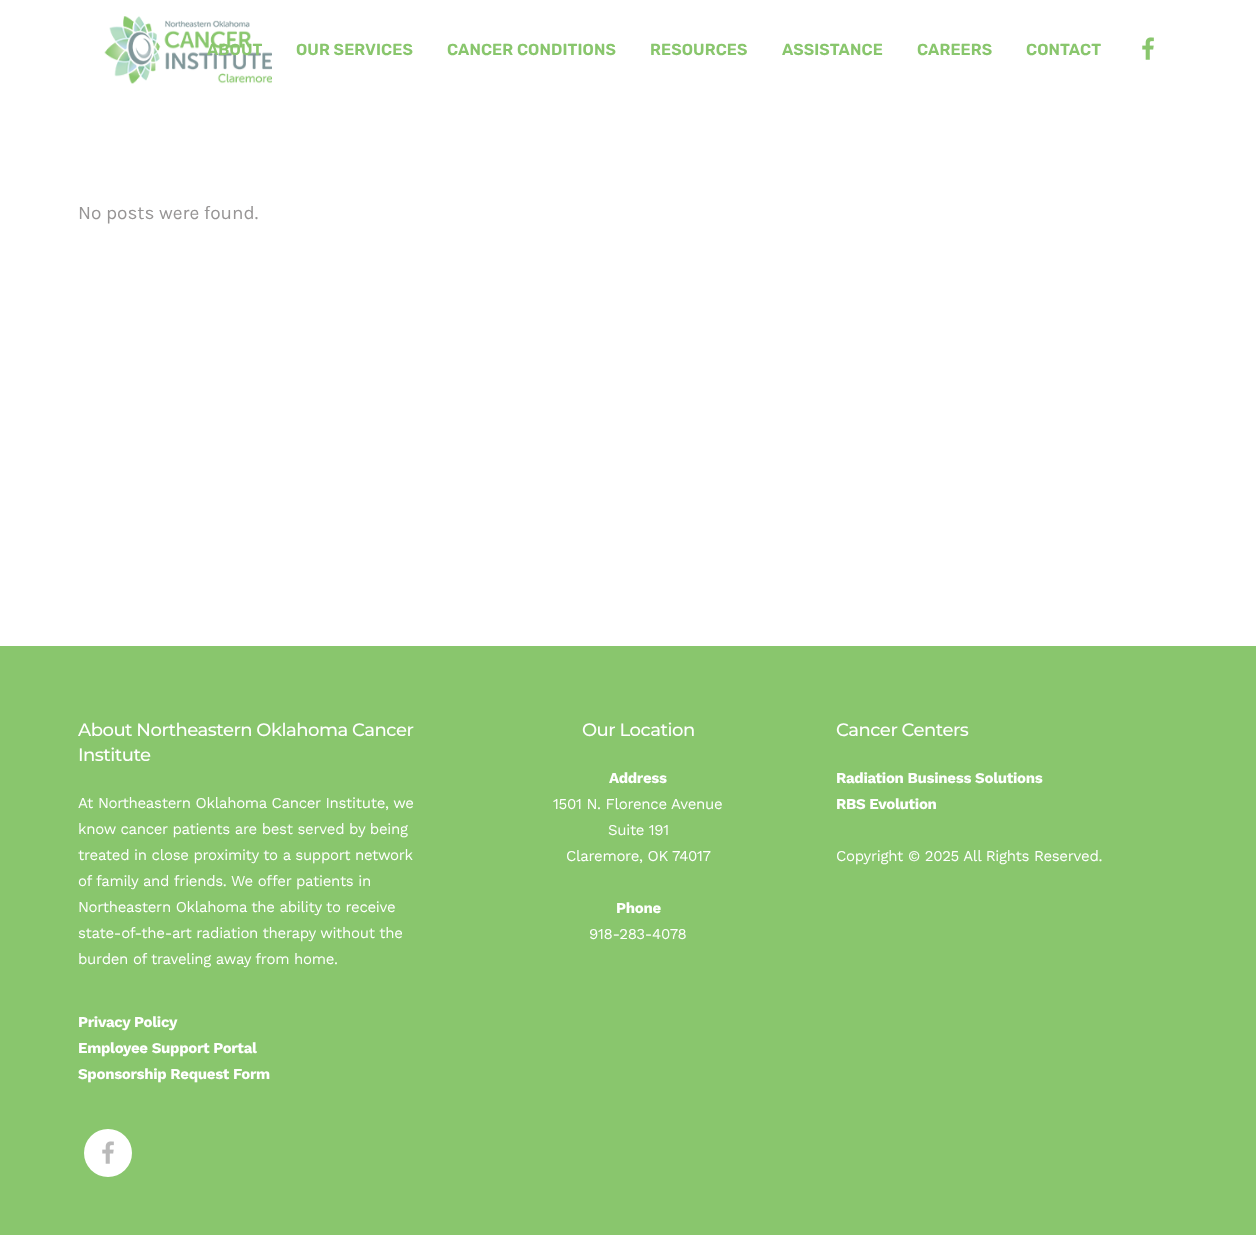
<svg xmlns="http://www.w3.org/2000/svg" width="1256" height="1235">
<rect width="100%" height="100%" fill="#fff"/>
<image x="104" y="16" width="168" height="68" href="media/1.png"/>
<text x="207" y="55" style="font-family:Rubik;font-size:16px;font-weight:600;letter-spacing:0.1px;fill:#89c66d">ABOUT</text>
<text x="296" y="55" style="font-family:Rubik;font-size:16px;font-weight:600;letter-spacing:0.1px;fill:#89c66d">OUR SERVICES</text>
<text x="447" y="55" style="font-family:Rubik;font-size:16px;font-weight:600;letter-spacing:0.1px;fill:#89c66d">CANCER CONDITIONS</text>
<text x="650" y="55" style="font-family:Rubik;font-size:16px;font-weight:600;letter-spacing:0.1px;fill:#89c66d">RESOURCES</text>
<text x="782" y="55" style="font-family:Rubik;font-size:16px;font-weight:600;letter-spacing:0.1px;fill:#89c66d">ASSISTANCE</text>
<text x="917" y="55" style="font-family:Rubik;font-size:16px;font-weight:600;letter-spacing:0.1px;fill:#89c66d">CAREERS</text>
<text x="1026" y="55" style="font-family:Rubik;font-size:16px;font-weight:600;letter-spacing:0.1px;fill:#89c66d">CONTACT</text>
<image x="1142" y="37" width="12" height="23" href="media/2.png"/>
<text x="78" y="219" style="font-family:Karla;font-size:19px;fill:#979595">No posts were found.</text>
<rect y="646" width="1256" height="589" fill="#89c66d"/>
<text x="78" y="736" style="font-family:Montserrat;font-size:18px;font-weight:500;letter-spacing:-0.5px;fill:#fff">About Northeastern Oklahoma Cancer</text>
<text x="78" y="761" style="font-family:Montserrat;font-size:18px;font-weight:500;letter-spacing:-0.5px;fill:#fff">Institute</text>
<text x="78" y="808" style="font-family:Work Sans;font-size:15px;letter-spacing:-0.3px;fill:#fff">At Northeastern Oklahoma Cancer Institute, we</text>
<text x="78" y="834" style="font-family:Work Sans;font-size:15px;letter-spacing:-0.3px;fill:#fff">know cancer patients are best served by being</text>
<text x="78" y="860" style="font-family:Work Sans;font-size:15px;letter-spacing:-0.3px;fill:#fff">treated in close proximity to a support network</text>
<text x="78" y="886" style="font-family:Work Sans;font-size:15px;letter-spacing:-0.3px;fill:#fff">of family and friends. We offer patients in</text>
<text x="78" y="912" style="font-family:Work Sans;font-size:15px;letter-spacing:-0.3px;fill:#fff">Northeastern Oklahoma the ability to receive</text>
<text x="78" y="938" style="font-family:Work Sans;font-size:15px;letter-spacing:-0.3px;fill:#fff">state-of-the-art radiation therapy without the</text>
<text x="78" y="964" style="font-family:Work Sans;font-size:15px;letter-spacing:-0.3px;fill:#fff">burden of traveling away from home.</text>
<text x="78" y="1027" style="font-family:Work Sans;font-size:15px;font-weight:bold;letter-spacing:-0.3px;fill:#fff">Privacy Policy</text>
<text x="78" y="1053" style="font-family:Work Sans;font-size:15px;font-weight:bold;letter-spacing:-0.3px;fill:#fff">Employee Support Portal</text>
<text x="78" y="1079" style="font-family:Work Sans;font-size:15px;font-weight:bold;letter-spacing:-0.3px;fill:#fff">Sponsorship Request Form</text>
<circle cx="108" cy="1153" r="24" fill="#fff"/>
<image x="102" y="1141" width="12" height="23" href="media/3.png"/>
<text x="582" y="736" style="font-family:Montserrat;font-size:18px;font-weight:500;letter-spacing:-0.5px;fill:#fff">Our Location</text>
<text x="609" y="783" style="font-family:Work Sans;font-size:15px;font-weight:bold;letter-spacing:-0.3px;fill:#fff">Address</text>
<text x="553" y="809" style="font-family:Work Sans;font-size:15px;letter-spacing:-0.3px;fill:#fff">1501 N. Florence Avenue</text>
<text x="608" y="835" style="font-family:Work Sans;font-size:15px;letter-spacing:-0.3px;fill:#fff">Suite 191</text>
<text x="566" y="861" style="font-family:Work Sans;font-size:15px;letter-spacing:-0.3px;fill:#fff">Claremore, OK 74017</text>
<text x="616" y="913" style="font-family:Work Sans;font-size:15px;font-weight:bold;letter-spacing:-0.3px;fill:#fff">Phone</text>
<text x="589" y="939" style="font-family:Work Sans;font-size:15px;letter-spacing:-0.3px;fill:#fff">918-283-4078</text>
<text x="836" y="736" style="font-family:Montserrat;font-size:18px;font-weight:500;letter-spacing:-0.5px;fill:#fff">Cancer Centers</text>
<text x="836" y="783" style="font-family:Work Sans;font-size:15px;font-weight:bold;letter-spacing:-0.3px;fill:#fff">Radiation Business Solutions</text>
<text x="836" y="809" style="font-family:Work Sans;font-size:15px;font-weight:bold;letter-spacing:-0.3px;fill:#fff">RBS Evolution</text>
<text x="836" y="861" style="font-family:Work Sans;font-size:15px;letter-spacing:-0.3px;fill:#fff">Copyright © 2025 All Rights Reserved.</text>
</svg>
